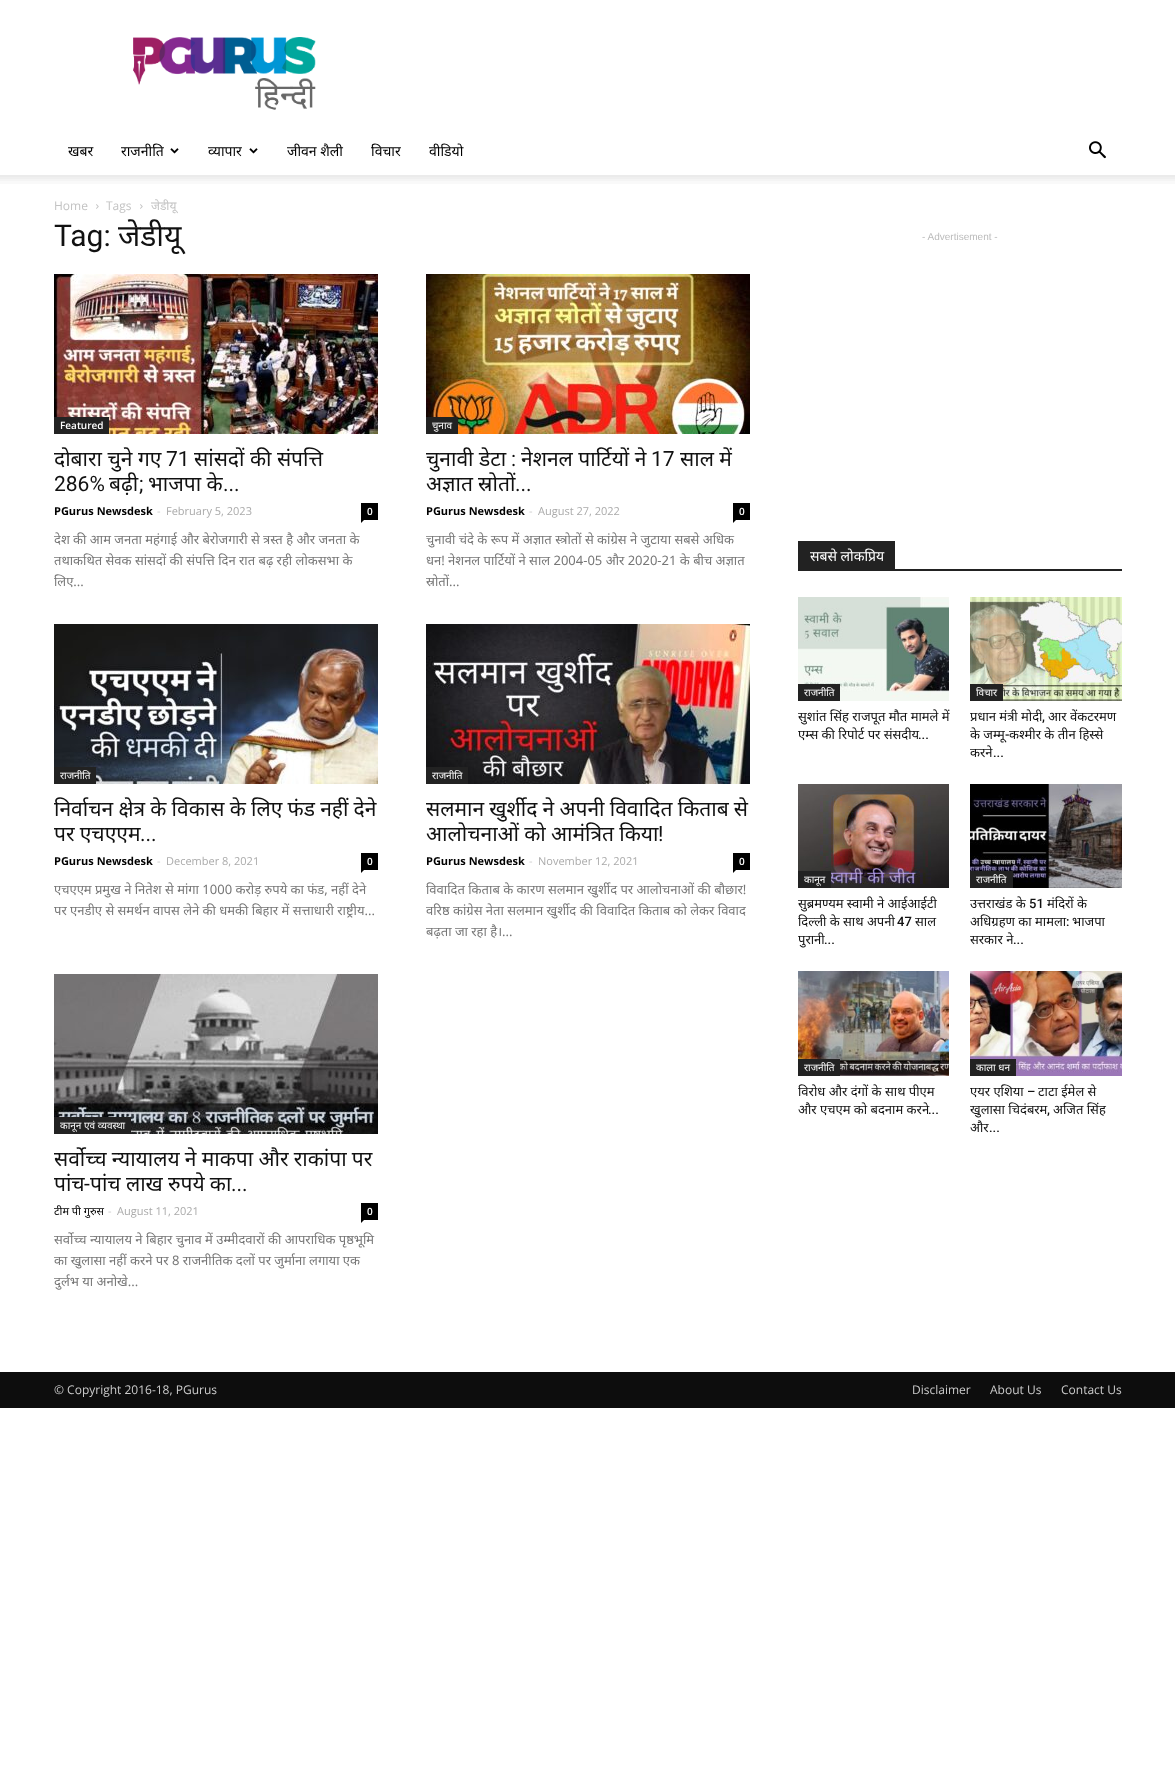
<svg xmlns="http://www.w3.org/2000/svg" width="1175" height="1778">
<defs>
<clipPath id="clip1"><rect x="798" y="541" width="324" height="596"/></clipPath>
</defs>
<rect width="100%" height="100%" fill="#fff"/>
<image x="133" y="37" width="183" height="73" href="media/1.png"/>
<text x="68" y="156" style="font-family:Noto Sans;font-size:14px;fill:#000">खबर</text>
<text x="121" y="156" style="font-family:Noto Sans;font-size:14px;fill:#000">राजनीति</text>
<image x="170" y="148" width="9" height="6" href="media/2.png"/>
<text x="208" y="156" style="font-family:Noto Sans;font-size:14px;fill:#000">व्यापार</text>
<image x="249" y="148" width="9" height="6" href="media/2.png"/>
<text x="287" y="156" style="font-family:Noto Sans;font-size:14px;fill:#000">जीवन शैली</text>
<text x="371" y="156" style="font-family:Noto Sans;font-size:14px;fill:#000">विचार</text>
<text x="429" y="156" style="font-family:Noto Sans;font-size:14px;fill:#000">वीडियो</text>
<image x="1089" y="141" width="17" height="18" href="media/3.png"/>
<image x="0" y="175" width="1175" height="9" href="media/4.png"/>
<text x="54" y="210" style="font-family:Open Sans;font-size:12px;fill:#c3c3c3">Home</text>
<image x="96" y="204" width="3" height="5" href="media/5.png"/>
<text x="106" y="210" style="font-family:Open Sans;font-size:12px;fill:#c3c3c3">Tags</text>
<image x="140" y="204" width="3" height="5" href="media/5.png"/>
<text x="151" y="210" style="font-family:Noto Sans;font-size:12px;fill:#c3c3c3">जेडीयू</text>
<text x="54" y="246" style="font-family:Roboto;font-size:30px;fill:#111">Tag:</text>
<text x="118" y="246" style="font-family:Noto Sans;font-size:30px;fill:#111">जेडीयू</text>
<image x="54" y="274" width="324" height="160" href="media/6.png"/>
<rect x="54" y="417" width="55" height="17" fill="#222"/>
<text x="60" y="429" style="font-family:Open Sans;font-size:10px;font-weight:600;fill:#fff">Featured</text>
<text x="54" y="466" style="font-family:Noto Sans;font-size:21px;fill:#111">दाेबारा चुने गए</text>
<text x="166" y="466" style="font-family:Roboto;font-size:21px;fill:#111">71</text>
<text x="194" y="466" style="font-family:Noto Sans;font-size:21px;fill:#111">सांसदाें की संपत्ति</text>
<text x="54" y="491" style="font-family:Roboto;font-size:21px;fill:#111">286%</text>
<text x="109" y="491" style="font-family:Noto Sans;font-size:21px;fill:#111">बढ़ी</text>
<text x="139" y="491" style="font-family:Roboto;font-size:21px;fill:#111">;</text>
<text x="148" y="491" style="font-family:Noto Sans;font-size:21px;fill:#111">भाजपा के</text>
<text x="223" y="491" style="font-family:Roboto;font-size:21px;fill:#111">...</text>
<text x="54" y="515" style="font-family:Open Sans;font-size:11px;font-weight:bold;fill:#000">PGurus Newsdesk</text>
<text x="157" y="515" style="font-family:Open Sans;font-size:11px;fill:#ccc">-</text>
<text x="166" y="515" style="font-family:Open Sans;font-size:11px;fill:#aaa">February 5, 2023</text>
<rect x="361" y="503" width="17" height="17" fill="#000"/>
<text x="367" y="515" style="font-family:Open Sans;font-size:10px;font-weight:600;fill:#fff">0</text>
<path d="M361 520h3l-3 3z" fill="#000"/>
<text x="54" y="544" style="font-family:Noto Sans;font-size:13px;fill:#777">देश की आम जनता महंगाई और बेरोजगारी से त्रस्त है और जनता के</text>
<text x="54" y="565" style="font-family:Noto Sans;font-size:13px;fill:#777">तथाकथित सेवक सांसदों की संपत्ति दिन रात बढ़ रही लाेकसभा के</text>
<text x="54" y="586" style="font-family:Noto Sans;font-size:13px;fill:#777">लिए...</text>
<image x="426" y="274" width="324" height="160" href="media/7.png"/>
<rect x="426" y="417" width="32" height="17" fill="#222"/>
<text x="432" y="429" style="font-family:Noto Sans;font-size:10px;fill:#fff">चुनाव</text>
<text x="426" y="466" style="font-family:Noto Sans;font-size:21px;fill:#111">चुनावी डेटा</text>
<text x="511" y="466" style="font-family:Roboto;font-size:21px;fill:#111">:</text>
<text x="521" y="466" style="font-family:Noto Sans;font-size:21px;fill:#111">नेशनल पार्टियों ने</text>
<text x="651" y="466" style="font-family:Roboto;font-size:21px;fill:#111">17</text>
<text x="680" y="466" style="font-family:Noto Sans;font-size:21px;fill:#111">साल में</text>
<text x="426" y="491" word-spacing="-0.25" style="font-family:Noto Sans;font-size:21px;fill:#111">अज्ञात स्रोतों</text>
<text x="515" y="491" style="font-family:Roboto;font-size:21px;fill:#111">...</text>
<text x="426" y="515" style="font-family:Open Sans;font-size:11px;font-weight:bold;fill:#000">PGurus Newsdesk</text>
<text x="529" y="515" style="font-family:Open Sans;font-size:11px;fill:#ccc">-</text>
<text x="538" y="515" style="font-family:Open Sans;font-size:11px;fill:#aaa">August 27, 2022</text>
<rect x="733" y="503" width="17" height="17" fill="#000"/>
<text x="739" y="515" style="font-family:Open Sans;font-size:10px;font-weight:600;fill:#fff">0</text>
<path d="M733 520h3l-3 3z" fill="#000"/>
<text x="426" y="544" style="font-family:Noto Sans;font-size:13px;fill:#777">चुनावी चंदे के रूप में अज्ञात स्त्रोतों से कांग्रेस ने जुटाया सबसे अधिक</text>
<text x="426" y="565" style="font-family:Noto Sans;font-size:13px;fill:#777">धन! नेशनल पार्टियों ने साल 2004-05 और 2020-21 के बीच अज्ञात</text>
<text x="426" y="586" style="font-family:Noto Sans;font-size:13px;fill:#777">स्रोतों...</text>
<image x="54" y="624" width="324" height="160" href="media/8.png"/>
<rect x="54" y="767" width="42" height="17" fill="#222"/>
<text x="60" y="779" style="font-family:Noto Sans;font-size:10px;fill:#fff">राजनीति</text>
<text x="54" y="816" word-spacing="-0.25" style="font-family:Noto Sans;font-size:21px;fill:#111">निर्वाचन क्षेत्र के विकास के लिए फंड नहीं देने</text>
<text x="54" y="841" word-spacing="-0.25" style="font-family:Noto Sans;font-size:21px;fill:#111">पर एचएएम</text>
<text x="140" y="841" style="font-family:Roboto;font-size:21px;fill:#111">...</text>
<text x="54" y="865" style="font-family:Open Sans;font-size:11px;font-weight:bold;fill:#000">PGurus Newsdesk</text>
<text x="157" y="865" style="font-family:Open Sans;font-size:11px;fill:#ccc">-</text>
<text x="166" y="865" style="font-family:Open Sans;font-size:11px;fill:#aaa">December 8, 2021</text>
<rect x="361" y="853" width="17" height="17" fill="#000"/>
<text x="367" y="865" style="font-family:Open Sans;font-size:10px;font-weight:600;fill:#fff">0</text>
<path d="M361 870h3l-3 3z" fill="#000"/>
<text x="54" y="894" style="font-family:Noto Sans;font-size:13px;fill:#777">एचएएम प्रमुख ने नितेश से मांगा 1000 करोड़ रुपये का फंड, नहीं देने</text>
<text x="54" y="915" style="font-family:Noto Sans;font-size:13px;fill:#777">पर एनडीए से समर्थन वापस लेने की धमकी बिहार में सत्ताधारी राष्ट्रीय...</text>
<image x="426" y="624" width="324" height="160" href="media/9.png"/>
<rect x="426" y="767" width="42" height="17" fill="#222"/>
<text x="432" y="779" style="font-family:Noto Sans;font-size:10px;fill:#fff">राजनीति</text>
<text x="426" y="816" word-spacing="-0.25" style="font-family:Noto Sans;font-size:21px;fill:#111">सलमान खुर्शीद ने अपनी विवादित किताब से</text>
<text x="426" y="841" word-spacing="-0.25" style="font-family:Noto Sans;font-size:21px;fill:#111">आलोचनाओं को आमंत्रित किया</text>
<text x="658" y="841" style="font-family:Roboto;font-size:21px;fill:#111">!</text>
<text x="426" y="865" style="font-family:Open Sans;font-size:11px;font-weight:bold;fill:#000">PGurus Newsdesk</text>
<text x="529" y="865" style="font-family:Open Sans;font-size:11px;fill:#ccc">-</text>
<text x="538" y="865" style="font-family:Open Sans;font-size:11px;fill:#aaa">November 12, 2021</text>
<rect x="733" y="853" width="17" height="17" fill="#000"/>
<text x="739" y="865" style="font-family:Open Sans;font-size:10px;font-weight:600;fill:#fff">0</text>
<path d="M733 870h3l-3 3z" fill="#000"/>
<text x="426" y="894" style="font-family:Noto Sans;font-size:13px;fill:#777">विवादित किताब के कारण सलमान खुर्शीद पर आलोचनाओं की बौछार!</text>
<text x="426" y="915" style="font-family:Noto Sans;font-size:13px;fill:#777">वरिष्ठ कांग्रेस नेता सलमान खुर्शीद की विवादित किताब को लेकर विवाद</text>
<text x="426" y="936" style="font-family:Noto Sans;font-size:13px;fill:#777">बढ़ता जा रहा है।...</text>
<image x="54" y="974" width="324" height="160" href="media/10.png"/>
<rect x="54" y="1117" width="77" height="17" fill="#222"/>
<text x="60" y="1129" style="font-family:Noto Sans;font-size:10px;fill:#fff">कानून एवं व्यवस्था</text>
<text x="54" y="1166" word-spacing="-0.25" style="font-family:Noto Sans;font-size:21px;fill:#111">सर्वोच्च न्यायालय ने माकपा और राकांपा पर</text>
<text x="54" y="1191" style="font-family:Noto Sans;font-size:21px;fill:#111">पांच</text>
<text x="84" y="1191" style="font-family:Roboto;font-size:21px;fill:#111">-</text>
<text x="90" y="1191" word-spacing="-0.25" style="font-family:Noto Sans;font-size:21px;fill:#111">पांच लाख रुपये का</text>
<text x="231" y="1191" style="font-family:Roboto;font-size:21px;fill:#111">...</text>
<text x="54" y="1215" style="font-family:Noto Sans;font-size:11px;fill:#000">टीम पी गुरुस</text>
<text x="108" y="1215" style="font-family:Open Sans;font-size:11px;fill:#ccc">-</text>
<text x="117" y="1215" style="font-family:Open Sans;font-size:11px;fill:#aaa">August 11, 2021</text>
<rect x="361" y="1203" width="17" height="17" fill="#000"/>
<text x="367" y="1215" style="font-family:Open Sans;font-size:10px;font-weight:600;fill:#fff">0</text>
<path d="M361 1220h3l-3 3z" fill="#000"/>
<text x="54" y="1244" style="font-family:Noto Sans;font-size:13px;fill:#777">सर्वोच्च न्यायालय ने बिहार चुनाव में उम्मीदवारों की आपराधिक पृष्ठभूमि</text>
<text x="54" y="1265" style="font-family:Noto Sans;font-size:13px;fill:#777">का खुलासा नहीं करने पर 8 राजनीतिक दलों पर जुर्माना लगाया एक</text>
<text x="54" y="1286" style="font-family:Noto Sans;font-size:13px;fill:#777">दुर्लभ या अनोखे...</text>
<text x="922" y="240" style="font-family:Liberation Sans;font-size:10px;fill:#bbb">- Advertisement -</text>
<rect x="798" y="569" width="324" height="2" fill="#222"/>
<rect x="798" y="541" width="97" height="28" fill="#222"/>
<text x="810" y="561" style="font-family:Noto Sans;font-size:14px;fill:#fff">सबसे लोकप्रिय</text>
<image x="798" y="597" width="151" height="104" href="media/11.png"/>
<rect x="798" y="684" width="42" height="17" fill="#222"/>
<text x="804" y="696" style="font-family:Noto Sans;font-size:10px;fill:#fff">राजनीति</text>
<g clip-path="url(#clip1)">
<text x="798" y="721" style="font-family:Noto Sans;font-size:13px;fill:#111">सुशांत सिंह राजपूत मौत मामले में</text>
</g>
<text x="798" y="739" style="font-family:Noto Sans;font-size:13px;fill:#111">एम्स की रिपोर्ट पर संसदीय</text>
<text x="918" y="739" style="font-family:Roboto;font-size:13px;font-weight:500;fill:#111">...</text>
<image x="970" y="597" width="152" height="104" href="media/12.png"/>
<rect x="970" y="684" width="33" height="17" fill="#222"/>
<text x="976" y="696" style="font-family:Noto Sans;font-size:10px;fill:#fff">विचार</text>
<text x="970" y="721" style="font-family:Noto Sans;font-size:13px;fill:#111">प्रधान मंत्री मोदी</text>
<text x="1042" y="721" style="font-family:Roboto;font-size:13px;font-weight:500;fill:#111">,</text>
<text x="1048" y="721" style="font-family:Noto Sans;font-size:13px;fill:#111">आर वेंकटरमण</text>
<text x="970" y="739" style="font-family:Noto Sans;font-size:13px;fill:#111">के जम्मू</text>
<text x="1005" y="739" style="font-family:Roboto;font-size:13px;font-weight:500;fill:#111">-</text>
<text x="1009" y="739" style="font-family:Noto Sans;font-size:13px;fill:#111">कश्मीर के तीन हिस्से</text>
<text x="970" y="757" style="font-family:Noto Sans;font-size:13px;fill:#111">करने</text>
<text x="993" y="757" style="font-family:Roboto;font-size:13px;font-weight:500;fill:#111">...</text>
<image x="798" y="784" width="151" height="104" href="media/13.png"/>
<rect x="798" y="871" width="33" height="17" fill="#222"/>
<text x="804" y="883" style="font-family:Noto Sans;font-size:10px;fill:#fff">कानून</text>
<g clip-path="url(#clip1)">
<text x="798" y="908" style="font-family:Noto Sans;font-size:13px;fill:#111">सुब्रमण्यम स्वामी ने आईआईटी</text>
</g>
<text x="798" y="926" style="font-family:Noto Sans;font-size:13px;fill:#111">दिल्ली के साथ अपनी</text>
<text x="897" y="926" style="font-family:Roboto;font-size:13px;font-weight:500;fill:#111">47</text>
<text x="915" y="926" style="font-family:Noto Sans;font-size:13px;fill:#111">साल</text>
<g clip-path="url(#clip1)">
<text x="798" y="944" style="font-family:Noto Sans;font-size:13px;fill:#111">पुरानी</text>
</g>
<text x="824" y="944" style="font-family:Roboto;font-size:13px;font-weight:500;fill:#111">...</text>
<image x="970" y="784" width="152" height="104" href="media/14.png"/>
<rect x="970" y="871" width="43" height="17" fill="#222"/>
<text x="976" y="883" style="font-family:Noto Sans;font-size:10px;fill:#fff">राजनीति</text>
<text x="970" y="908" style="font-family:Noto Sans;font-size:13px;fill:#111">उत्तराखंड के</text>
<text x="1029" y="908" style="font-family:Roboto;font-size:13px;font-weight:500;fill:#111">51</text>
<text x="1047" y="908" style="font-family:Noto Sans;font-size:13px;fill:#111">मंदिरों के</text>
<text x="970" y="926" style="font-family:Noto Sans;font-size:13px;fill:#111">अधिग्रहण का मामला</text>
<text x="1066" y="926" style="font-family:Roboto;font-size:13px;font-weight:500;fill:#111">:</text>
<text x="1072" y="926" style="font-family:Noto Sans;font-size:13px;fill:#111">भाजपा</text>
<text x="970" y="944" style="font-family:Noto Sans;font-size:13px;fill:#111">सरकार ने</text>
<text x="1013" y="944" style="font-family:Roboto;font-size:13px;font-weight:500;fill:#111">...</text>
<image x="798" y="971" width="151" height="105" href="media/15.png"/>
<rect x="798" y="1059" width="42" height="17" fill="#222"/>
<text x="804" y="1071" style="font-family:Noto Sans;font-size:10px;fill:#fff">राजनीति</text>
<text x="798" y="1096" style="font-family:Noto Sans;font-size:13px;fill:#111">विरोध और दंगों के साथ पीएम</text>
<text x="798" y="1114" style="font-family:Noto Sans;font-size:13px;fill:#111">और एचएम को बदनाम करने</text>
<text x="928" y="1114" style="font-family:Roboto;font-size:13px;font-weight:500;fill:#111">...</text>
<image x="970" y="971" width="152" height="105" href="media/16.png"/>
<rect x="970" y="1059" width="46" height="17" fill="#222"/>
<text x="976" y="1071" style="font-family:Noto Sans;font-size:10px;fill:#fff">काला धन</text>
<text x="970" y="1096" style="font-family:Noto Sans;font-size:13px;fill:#111">एयर एशिया</text>
<text x="1027" y="1096" style="font-family:Roboto;font-size:13px;font-weight:500;fill:#111">–</text>
<text x="1038" y="1096" style="font-family:Noto Sans;font-size:13px;fill:#111">टाटा ईमेल से</text>
<text x="970" y="1114" style="font-family:Noto Sans;font-size:13px;fill:#111">खुलासा चिदंबरम</text>
<text x="1047" y="1114" style="font-family:Roboto;font-size:13px;font-weight:500;fill:#111">,</text>
<text x="1053" y="1114" style="font-family:Noto Sans;font-size:13px;fill:#111">अजित सिंह</text>
<text x="970" y="1132" style="font-family:Noto Sans;font-size:13px;fill:#111">और</text>
<text x="989" y="1132" style="font-family:Roboto;font-size:13px;font-weight:500;fill:#111">...</text>
<rect y="1372" width="1175" height="36" fill="#0d0d0d"/>
<text x="54" y="1394" style="font-family:Open Sans;font-size:12px;fill:#ccc">© Copyright 2016-18, PGurus</text>
<text x="912" y="1394" style="font-family:Open Sans;font-size:12px;fill:#ccc">Disclaimer</text>
<text x="990" y="1394" style="font-family:Open Sans;font-size:12px;fill:#ccc">About Us</text>
<text x="1061" y="1394" style="font-family:Open Sans;font-size:12px;fill:#ccc">Contact Us</text>
</svg>
